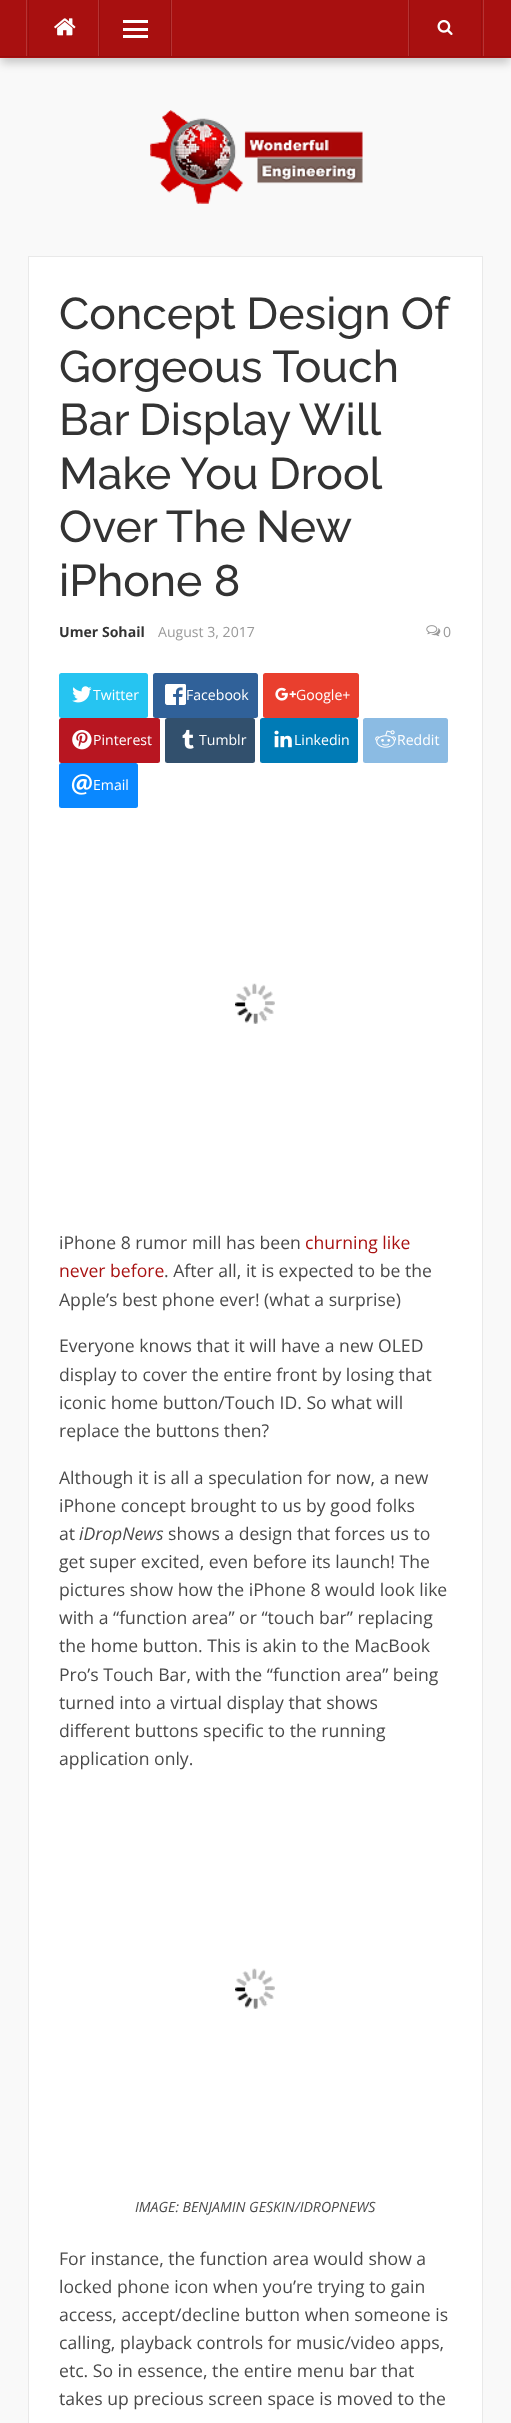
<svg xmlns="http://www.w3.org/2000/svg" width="511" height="2423">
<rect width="100%" height="100%" fill="#f9f9f9"/>
<rect x="1" y="8" width="509" height="55" fill="#00000033" filter="blur(5px)"/>
<rect width="511" height="58" fill="#a81010"/>
<rect x="26" width="1" height="56" fill="#b53434"/>
<rect x="28" width="1" height="56" fill="#970e0e"/>
<image x="54" y="18" width="22" height="18" href="media/1.png"/>
<rect x="98" width="1" height="56" fill="#b53434"/>
<rect x="99" width="1" height="56" fill="#970e0e"/>
<rect x="123" y="28" width="25" height="3" fill="#fff"/>
<rect x="123" y="20" width="25" height="3" fill="#fff"/>
<rect x="123" y="35" width="25" height="3" fill="#fff"/>
<rect x="170" width="1" height="56" fill="#970e0e"/>
<rect x="171" width="1" height="56" fill="#b53434"/>
<rect x="408" width="1" height="56" fill="#b53434"/>
<rect x="409" width="1" height="56" fill="#970e0e"/>
<image x="437" y="20" width="16" height="15" href="media/2.png"/>
<rect x="481" width="1" height="56" fill="#970e0e"/>
<rect x="483" width="1" height="56" fill="#b53434"/>
<rect y="56" width="511" height="1" fill="#970e0e"/>
<image x="150" y="110" width="213" height="94" href="media/3.png"/>
<rect x="28.5" y="256.5" width="454" height="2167" fill="#fff" stroke="#e9e9e9"/>
<text x="59" y="329" word-spacing="-1" style="font-family:Raleway;font-size:44.5px;font-weight:100;fill:#333">Concept Design Of</text>
<text x="59" y="382" style="font-family:Raleway;font-size:44.5px;font-weight:100;fill:#333">Gorgeous Touch</text>
<text x="59" y="435" word-spacing="-1" style="font-family:Raleway;font-size:44.5px;font-weight:100;fill:#333">Bar Display Will</text>
<text x="59" y="489" word-spacing="-1" style="font-family:Raleway;font-size:44.5px;font-weight:100;fill:#333">Make You Drool</text>
<text x="59" y="542" word-spacing="-1" style="font-family:Raleway;font-size:44.5px;font-weight:100;fill:#333">Over The New</text>
<text x="59" y="596" style="font-family:Raleway;font-size:44.5px;font-weight:100;fill:#333">iPhone 8</text>
<text x="59" y="637" style="font-family:Open Sans;font-size:14.1px;font-weight:bold;fill:#333">Umer Sohail</text>
<text x="158" y="637" style="font-family:Open Sans;font-size:14.1px;fill:#999">August 3, 2017</text>
<image x="426" y="625" width="15" height="12" href="media/4.png"/>
<text x="443" y="637" style="font-family:Open Sans;font-size:14.1px;fill:#999">0</text>
<rect x="59" y="673" width="89" height="45" rx="2.5" fill="#26c4f1"/>
<image x="72" y="686" width="20" height="17" href="media/5.png"/>
<text x="93" y="700" style="font-family:Open Sans;font-size:14.1px;fill:#fff">Twitter</text>
<rect x="153" y="673" width="105" height="45" rx="2.5" fill="#306199"/>
<image x="165" y="684" width="21" height="21" href="media/6.png"/>
<text x="186" y="700" style="font-family:Open Sans;font-size:14.1px;fill:#fff">Facebook</text>
<rect x="263" y="673" width="96" height="45" rx="2.5" fill="#e93f2e"/>
<image x="275" y="687" width="21" height="14" href="media/7.png"/>
<text x="296" y="700" style="font-family:Open Sans;font-size:14.1px;fill:#fff">Google+</text>
<rect x="59" y="718" width="101" height="45" rx="2.5" fill="#b81621"/>
<image x="72" y="729" width="20" height="21" href="media/8.png"/>
<text x="93" y="745" style="font-family:Open Sans;font-size:14.1px;fill:#fff">Pinterest</text>
<rect x="165" y="718" width="90" height="45" rx="2.5" fill="#32506d"/>
<image x="182" y="729" width="12" height="20" href="media/9.png"/>
<text x="199" y="745" style="font-family:Open Sans;font-size:14.1px;fill:#fff">Tumblr</text>
<rect x="260" y="718" width="98" height="45" rx="2.5" fill="#007bb6"/>
<image x="274" y="730" width="18" height="18" href="media/10.png"/>
<text x="294" y="745" style="font-family:Open Sans;font-size:14.1px;fill:#fff">Linkedin</text>
<rect x="363" y="718" width="85" height="45" rx="2.5" fill="#8bbbe3"/>
<image x="375" y="730" width="21" height="18" href="media/11.png"/>
<text x="397" y="745" style="font-family:Open Sans;font-size:14.1px;fill:#fff">Reddit</text>
<rect x="59" y="763" width="79" height="45" rx="2.5" fill="#0a88ff"/>
<image x="71" y="774" width="21" height="21" href="media/12.png"/>
<text x="93" y="790" style="font-family:Open Sans;font-size:14.1px;fill:#fff">Email</text>
<image x="235" y="983" width="40" height="41" href="media/13.png"/>
<text x="59" y="1249" style="font-family:Open Sans;font-size:17.6px;fill:#494949">iPhone 8 rumor mill has been</text>
<text x="305" y="1249" style="font-family:Open Sans;font-size:17.6px;fill:#a81010">churning like</text>
<text x="59" y="1277" style="font-family:Open Sans;font-size:17.6px;fill:#a81010">never before</text>
<text x="164" y="1277" style="font-family:Open Sans;font-size:17.6px;fill:#494949">. After all, it is expected to be the</text>
<text x="59" y="1306" style="font-family:Open Sans;font-size:17.6px;fill:#494949">Apple’s best phone ever! (what a surprise)</text>
<text x="59" y="1352" style="font-family:Open Sans;font-size:17.6px;fill:#494949">Everyone knows that it will have a new OLED</text>
<text x="59" y="1381" style="font-family:Open Sans;font-size:17.6px;fill:#494949">display to cover the entire front by losing that</text>
<text x="59" y="1409" style="font-family:Open Sans;font-size:17.6px;fill:#494949">iconic home button/Touch ID. So what will</text>
<text x="59" y="1437" style="font-family:Open Sans;font-size:17.6px;fill:#494949">replace the buttons then?</text>
<text x="59" y="1484" style="font-family:Open Sans;font-size:17.6px;fill:#494949">Although it is all a speculation for now, a new</text>
<text x="59" y="1512" style="font-family:Open Sans;font-size:17.6px;fill:#494949">iPhone concept brought to us by good folks</text>
<text x="59" y="1540" style="font-family:Open Sans;font-size:17.6px;fill:#494949">at</text>
<text x="79" y="1540" style="font-family:Open Sans;font-size:17.6px;font-style:italic;fill:#494949">iDropNews</text>
<text x="168" y="1540" style="font-family:Open Sans;font-size:17.6px;fill:#494949">shows a design that forces us to</text>
<text x="59" y="1568" style="font-family:Open Sans;font-size:17.6px;fill:#494949">get super excited, even before its launch! The</text>
<text x="59" y="1596" style="font-family:Open Sans;font-size:17.6px;fill:#494949">pictures show how the iPhone 8 would look like</text>
<text x="59" y="1624" style="font-family:Open Sans;font-size:17.6px;fill:#494949">with a “function area” or “touch bar” replacing</text>
<text x="59" y="1652" style="font-family:Open Sans;font-size:17.6px;fill:#494949">the home button. This is akin to the MacBook</text>
<text x="59" y="1681" style="font-family:Open Sans;font-size:17.6px;fill:#494949">Pro’s Touch Bar, with the “function area” being</text>
<text x="59" y="1709" style="font-family:Open Sans;font-size:17.6px;fill:#494949">turned into a virtual display that shows</text>
<text x="59" y="1737" style="font-family:Open Sans;font-size:17.6px;fill:#494949">different buttons specific to the running</text>
<text x="59" y="1765" style="font-family:Open Sans;font-size:17.6px;fill:#494949">application only.</text>
<image x="235" y="1968" width="40" height="41" href="media/13.png"/>
<text x="135" y="2212" style="font-family:Open Sans;font-size:14.1px;font-style:italic;fill:#494949">IMAGE: BENJAMIN GESKIN/IDROPNEWS</text>
<text x="59" y="2265" style="font-family:Open Sans;font-size:17.6px;fill:#494949">For instance, the function area would show a</text>
<text x="59" y="2293" style="font-family:Open Sans;font-size:17.6px;fill:#494949">locked phone icon when you’re trying to gain</text>
<text x="59" y="2321" style="font-family:Open Sans;font-size:17.6px;fill:#494949">access, accept/decline button when someone is</text>
<text x="59" y="2349" style="font-family:Open Sans;font-size:17.6px;fill:#494949">calling, playback controls for music/video apps,</text>
<text x="59" y="2377" style="font-family:Open Sans;font-size:17.6px;fill:#494949">etc. So in essence, the entire menu bar that</text>
<text x="59" y="2405" style="font-family:Open Sans;font-size:17.6px;fill:#494949">takes up precious screen space is moved to the</text>
</svg>
